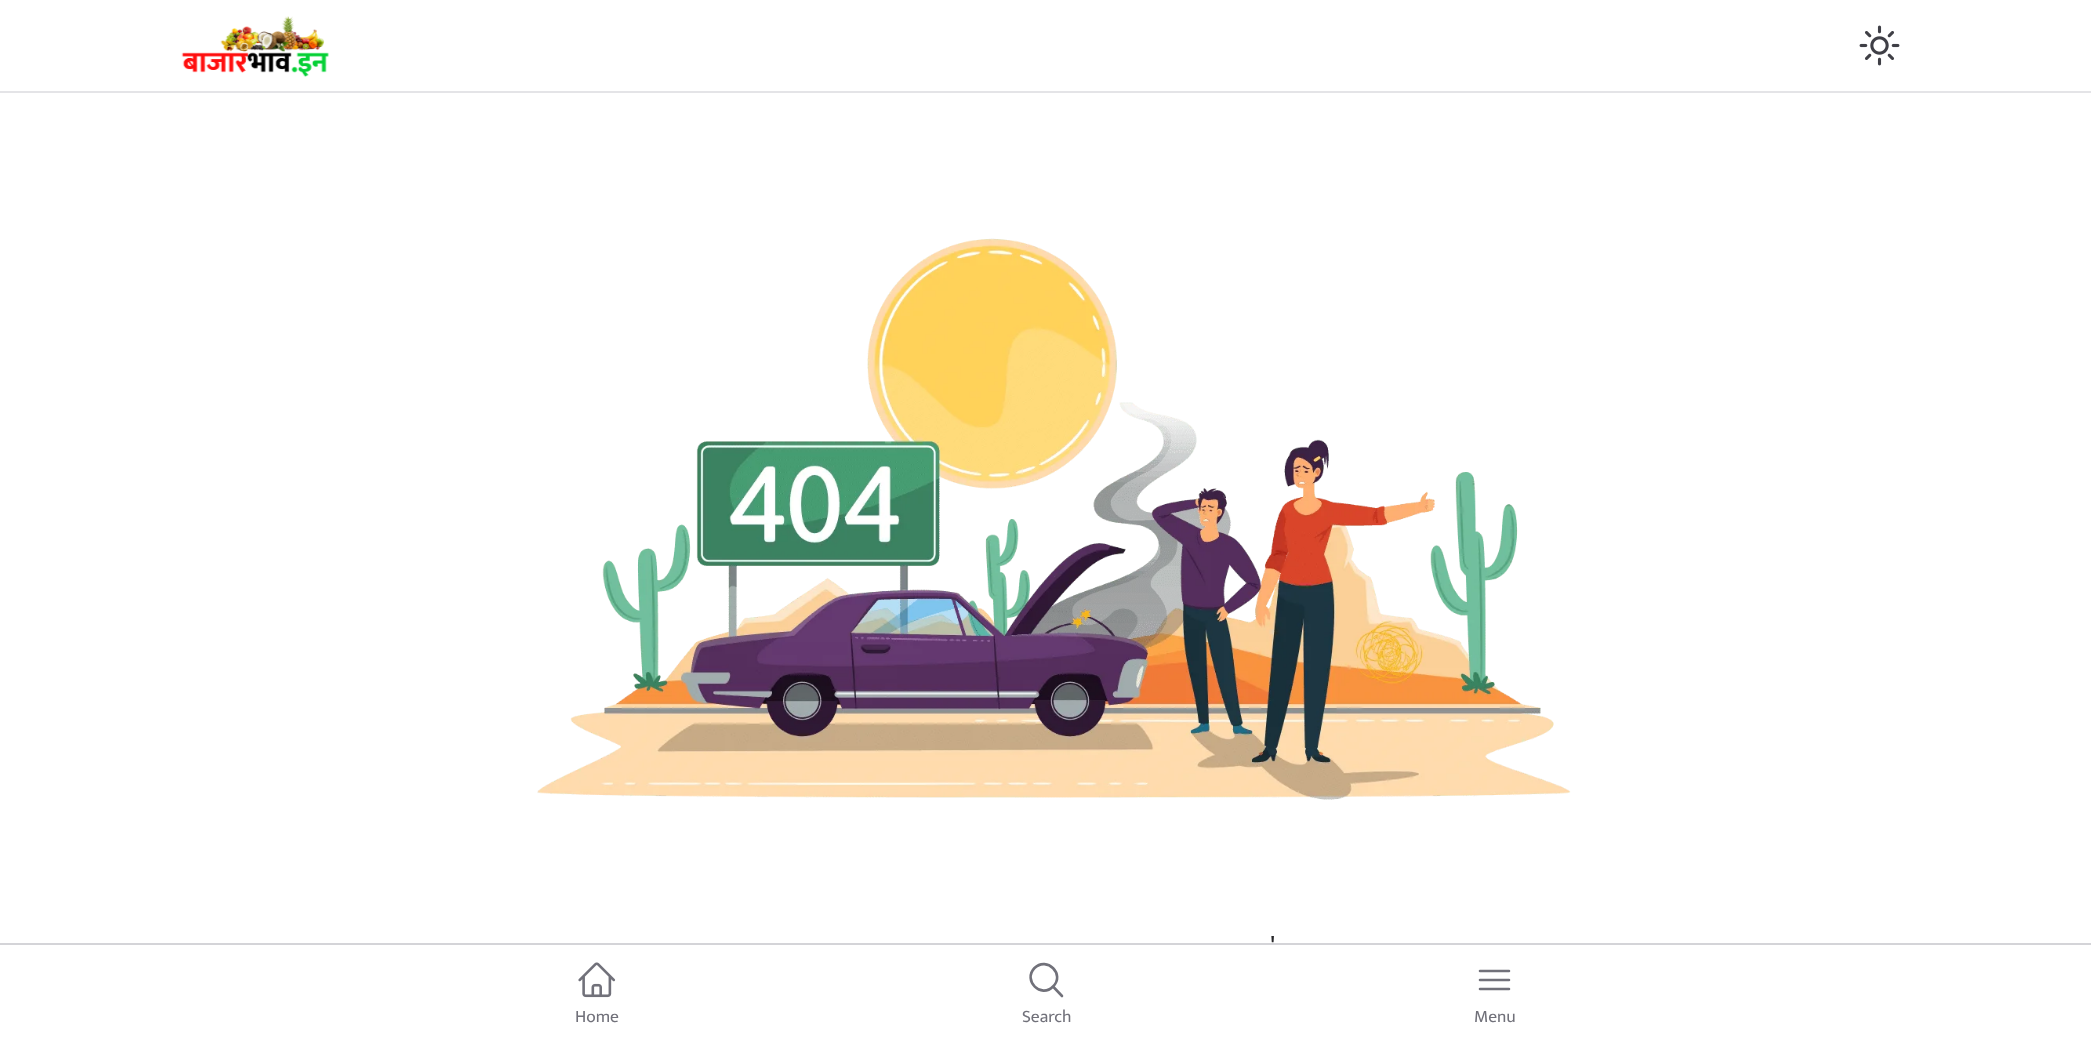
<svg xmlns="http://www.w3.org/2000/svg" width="2091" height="1039">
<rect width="100%" height="100%" fill="#fff"/>
<rect y="91" width="2091" height="2" fill="#e4e4e7"/>
<image x="181" y="16" width="148" height="61" href="media/1.png"/>
<image x="1859" y="25" width="41" height="41" href="media/2.png"/>
<image x="537" y="238" width="1034" height="562" href="media/3.png"/>
<text x="1270" y="954" style="font-family:Mukta;font-size:28px;font-weight:500;letter-spacing:1px;fill:#27272a">'</text>
<rect y="943" width="2091" height="2" fill="#d4d4d8"/>
<image x="578" y="962" width="38" height="36" href="media/4.png"/>
<text x="575" y="1022" style="font-family:Mukta;font-size:17.5px;fill:#71717a">Home</text>
<path d="M1062 996l-9-9.5m0 0c12.5-12-6-30.5-18.5-18.5c-12 12.5 6.5 31 18.5 18.5z" fill="none" stroke="#71717a" stroke-width="2.6" stroke-linecap="round" stroke-linejoin="round"/>
<text x="1022" y="1022" style="font-family:Mukta;font-size:17.5px;fill:#71717a">Search</text>
<path d="M1480 971h29m-29 9h29m-29 9h29" fill="none" stroke="#71717a" stroke-width="2.6" stroke-linecap="round" stroke-linejoin="round"/>
<text x="1474" y="1022" style="font-family:Mukta;font-size:17.5px;fill:#71717a">Menu</text>
</svg>
